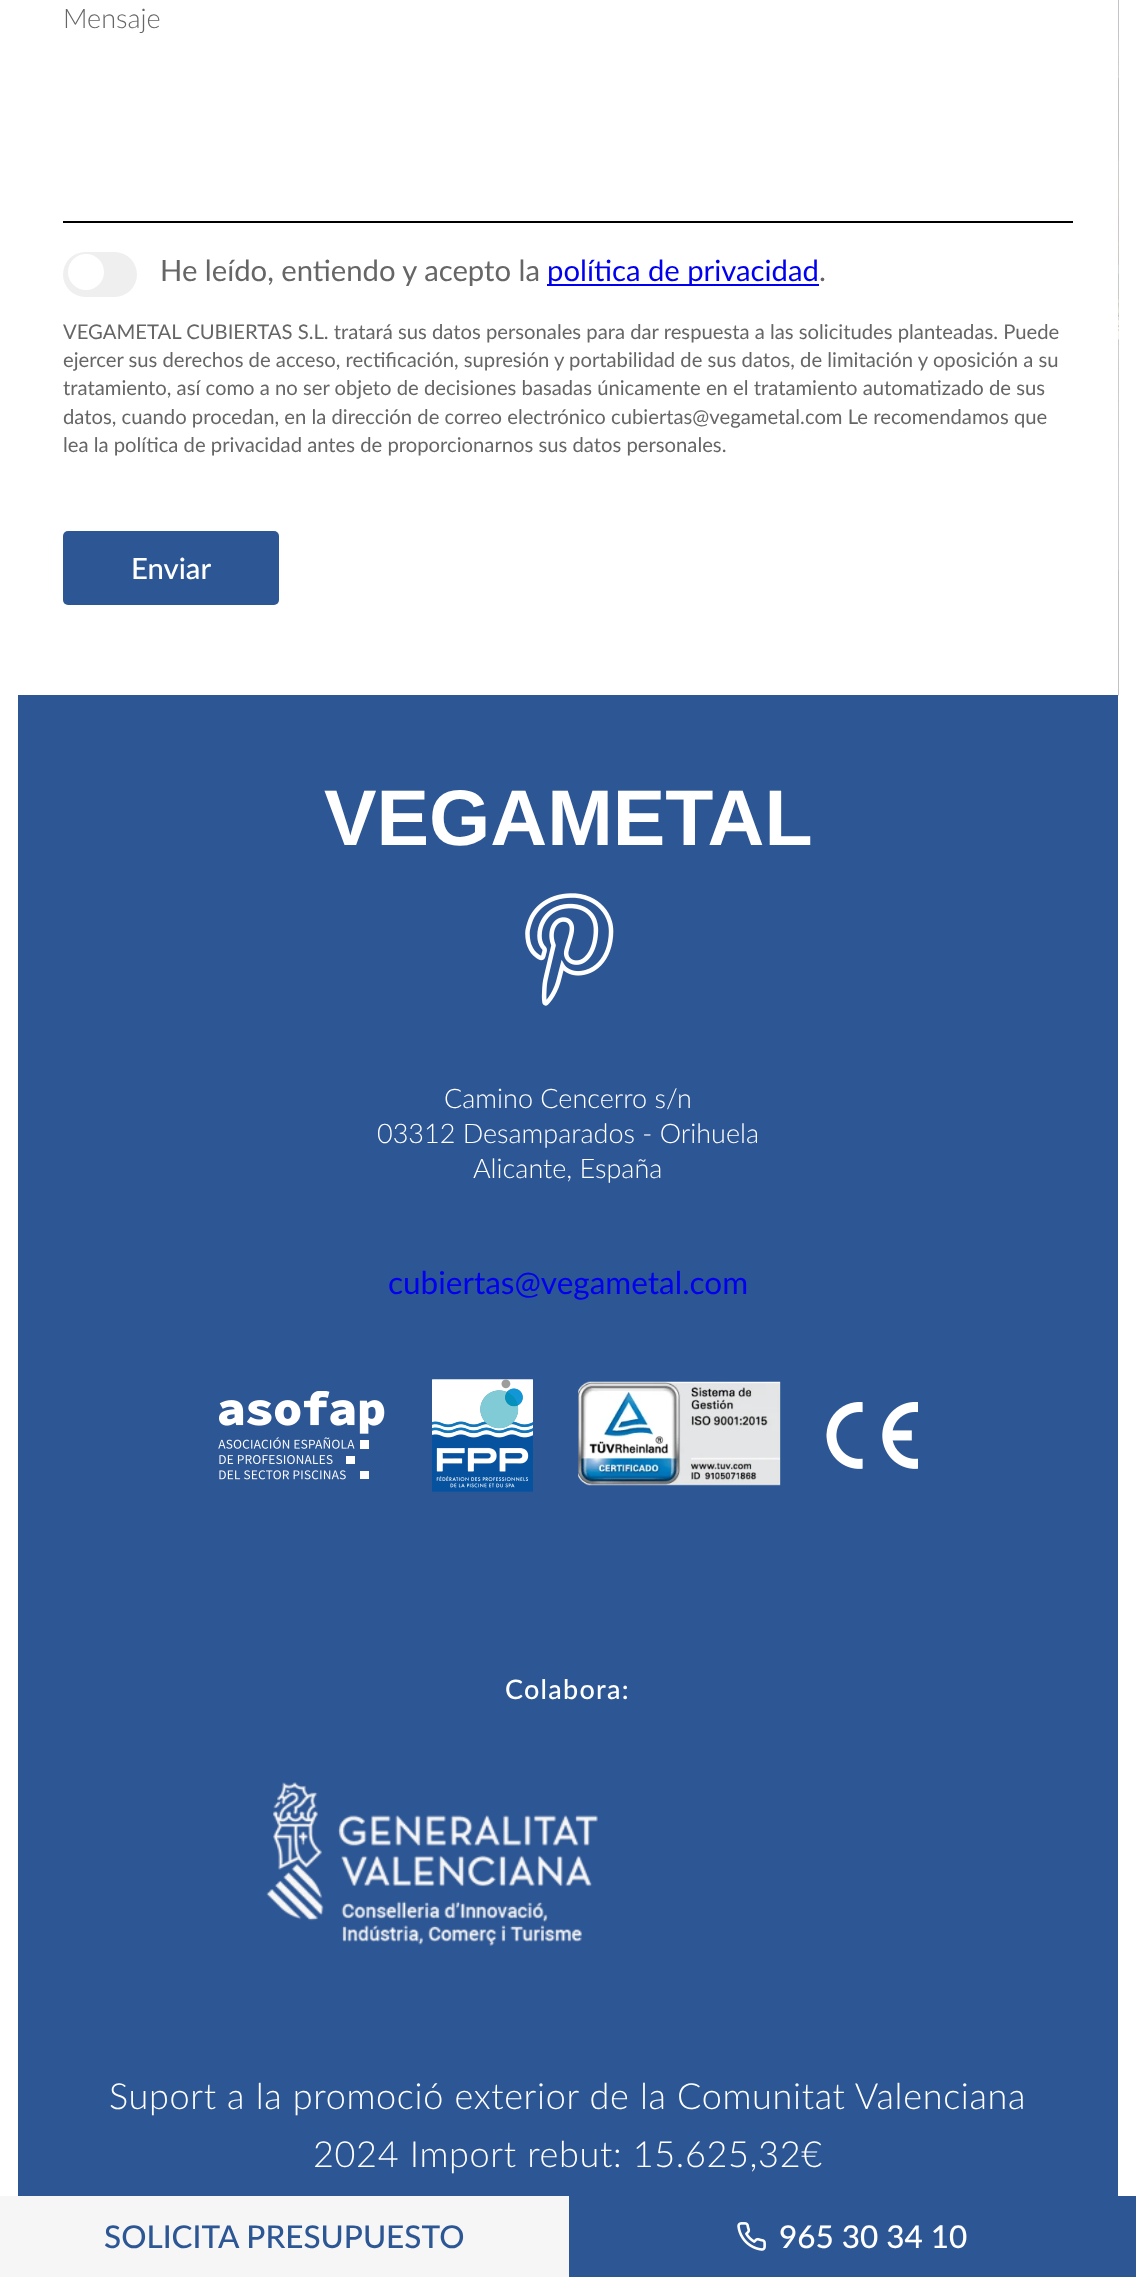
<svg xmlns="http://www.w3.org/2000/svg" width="1136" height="2277">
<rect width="100%" height="100%" fill="#fff"/>
<image x="1118" y="0" width="1" height="696" href="media/1.png"/>
<text x="63" y="28" style="font-family:Lato;font-size:27px;font-weight:300;fill:#666">Mensaje</text>
<rect x="63" y="221" width="1010" height="2" fill="#000"/>
<rect x="63" y="252" width="74" height="45" rx="22.5" fill="#efefef"/>
<circle cx="86" cy="272" r="18" fill="#fff"/>
<text x="160" y="281" style="font-family:Lato;font-size:29.25px;fill:#666">He leído, entiendo y acepto la</text>
<rect x="547" y="284" width="272" height="2" fill="#00e"/>
<text x="547" y="281" style="font-family:Lato;font-size:29.25px;fill:#00e">política de privacidad</text>
<text x="819" y="281" style="font-family:Lato;font-size:29.25px;fill:#666">.</text>
<text x="63" y="339" style="font-family:Lato;font-size:20.25px;fill:#666">VEGAMETAL CUBIERTAS S.L. tratará sus datos personales para dar respuesta a las solicitudes planteadas. Puede</text>
<text x="63" y="367" style="font-family:Lato;font-size:20.25px;fill:#666">ejercer sus derechos de acceso, rectificación, supresión y portabilidad de sus datos, de limitación y oposición a su</text>
<text x="63" y="395" style="font-family:Lato;font-size:20.25px;fill:#666">tratamiento, así como a no ser objeto de decisiones basadas únicamente en el tratamiento automatizado de sus</text>
<text x="63" y="424" style="font-family:Lato;font-size:20.25px;fill:#666">datos, cuando procedan, en la dirección de correo electrónico cubiertas@vegametal.com Le recomendamos que</text>
<text x="63" y="452" style="font-family:Lato;font-size:20.25px;fill:#666">lea la política de privacidad antes de proporcionarnos sus datos personales.</text>
<rect x="63" y="531" width="216" height="74" rx="5" fill="#2d5694"/>
<text x="131" y="579" style="font-family:Lato;font-size:29.25px;font-weight:500;fill:#fff">Enviar</text>
<rect x="18" y="695" width="1100" height="1501" fill="#2d5694"/>
<text x="324" y="845" style="font-family:Liberation Sans;font-size:78.75px;font-weight:bold;fill:#fff">VEGAMETAL</text>
<image x="525" y="893" width="89" height="113" href="media/2.png"/>
<text x="444" y="1108" style="font-family:Lato;font-size:27px;font-weight:300;fill:#fff">Camino Cencerro s/n</text>
<text x="377" y="1143" style="font-family:Lato;font-size:27px;font-weight:300;fill:#fff">03312 Desamparados - Orihuela</text>
<text x="473" y="1178" style="font-family:Lato;font-size:27px;font-weight:300;fill:#fff">Alicante, España</text>
<text x="388" y="1294" style="font-family:Lato;font-size:31.5px;fill:#00e">cubiertas@vegametal.com</text>
<image x="218" y="1391" width="167" height="89" href="media/3.png"/>
<image x="432" y="1379" width="101" height="113" href="media/4.png"/>
<image x="578" y="1381" width="203" height="105" href="media/5.png"/>
<image x="826" y="1402" width="92" height="67" href="media/6.png"/>
<text x="505" y="1699" style="font-family:Lato;font-size:27px;font-weight:500;letter-spacing:1.25px;fill:#fff">Colabora:</text>
<image x="266" y="1782" width="332" height="164" href="media/7.png"/>
<text x="109" y="2109" style="font-family:Lato;font-size:36px;font-weight:300;letter-spacing:0.67px;fill:#fff">Suport a la promoció exterior de la Comunitat Valenciana</text>
<text x="313" y="2167" style="font-family:Lato;font-size:36px;font-weight:300;letter-spacing:0.67px;fill:#fff">2024 Import rebut: 15.625,32€</text>
<rect y="2196" width="569" height="81" fill="#f6f6f6"/>
<text x="104" y="2248" style="font-family:Lato;font-size:31.5px;font-weight:500;fill:#2d5694">SOLICITA PRESUPUESTO</text>
<rect x="569" y="2196" width="567" height="81" fill="#2d5694"/>
<image x="737" y="2222" width="29" height="29" href="media/8.png"/>
<text x="779" y="2248" style="font-family:Lato;font-size:31.5px;font-weight:500;fill:#fff">965 30 34 10</text>
</svg>
